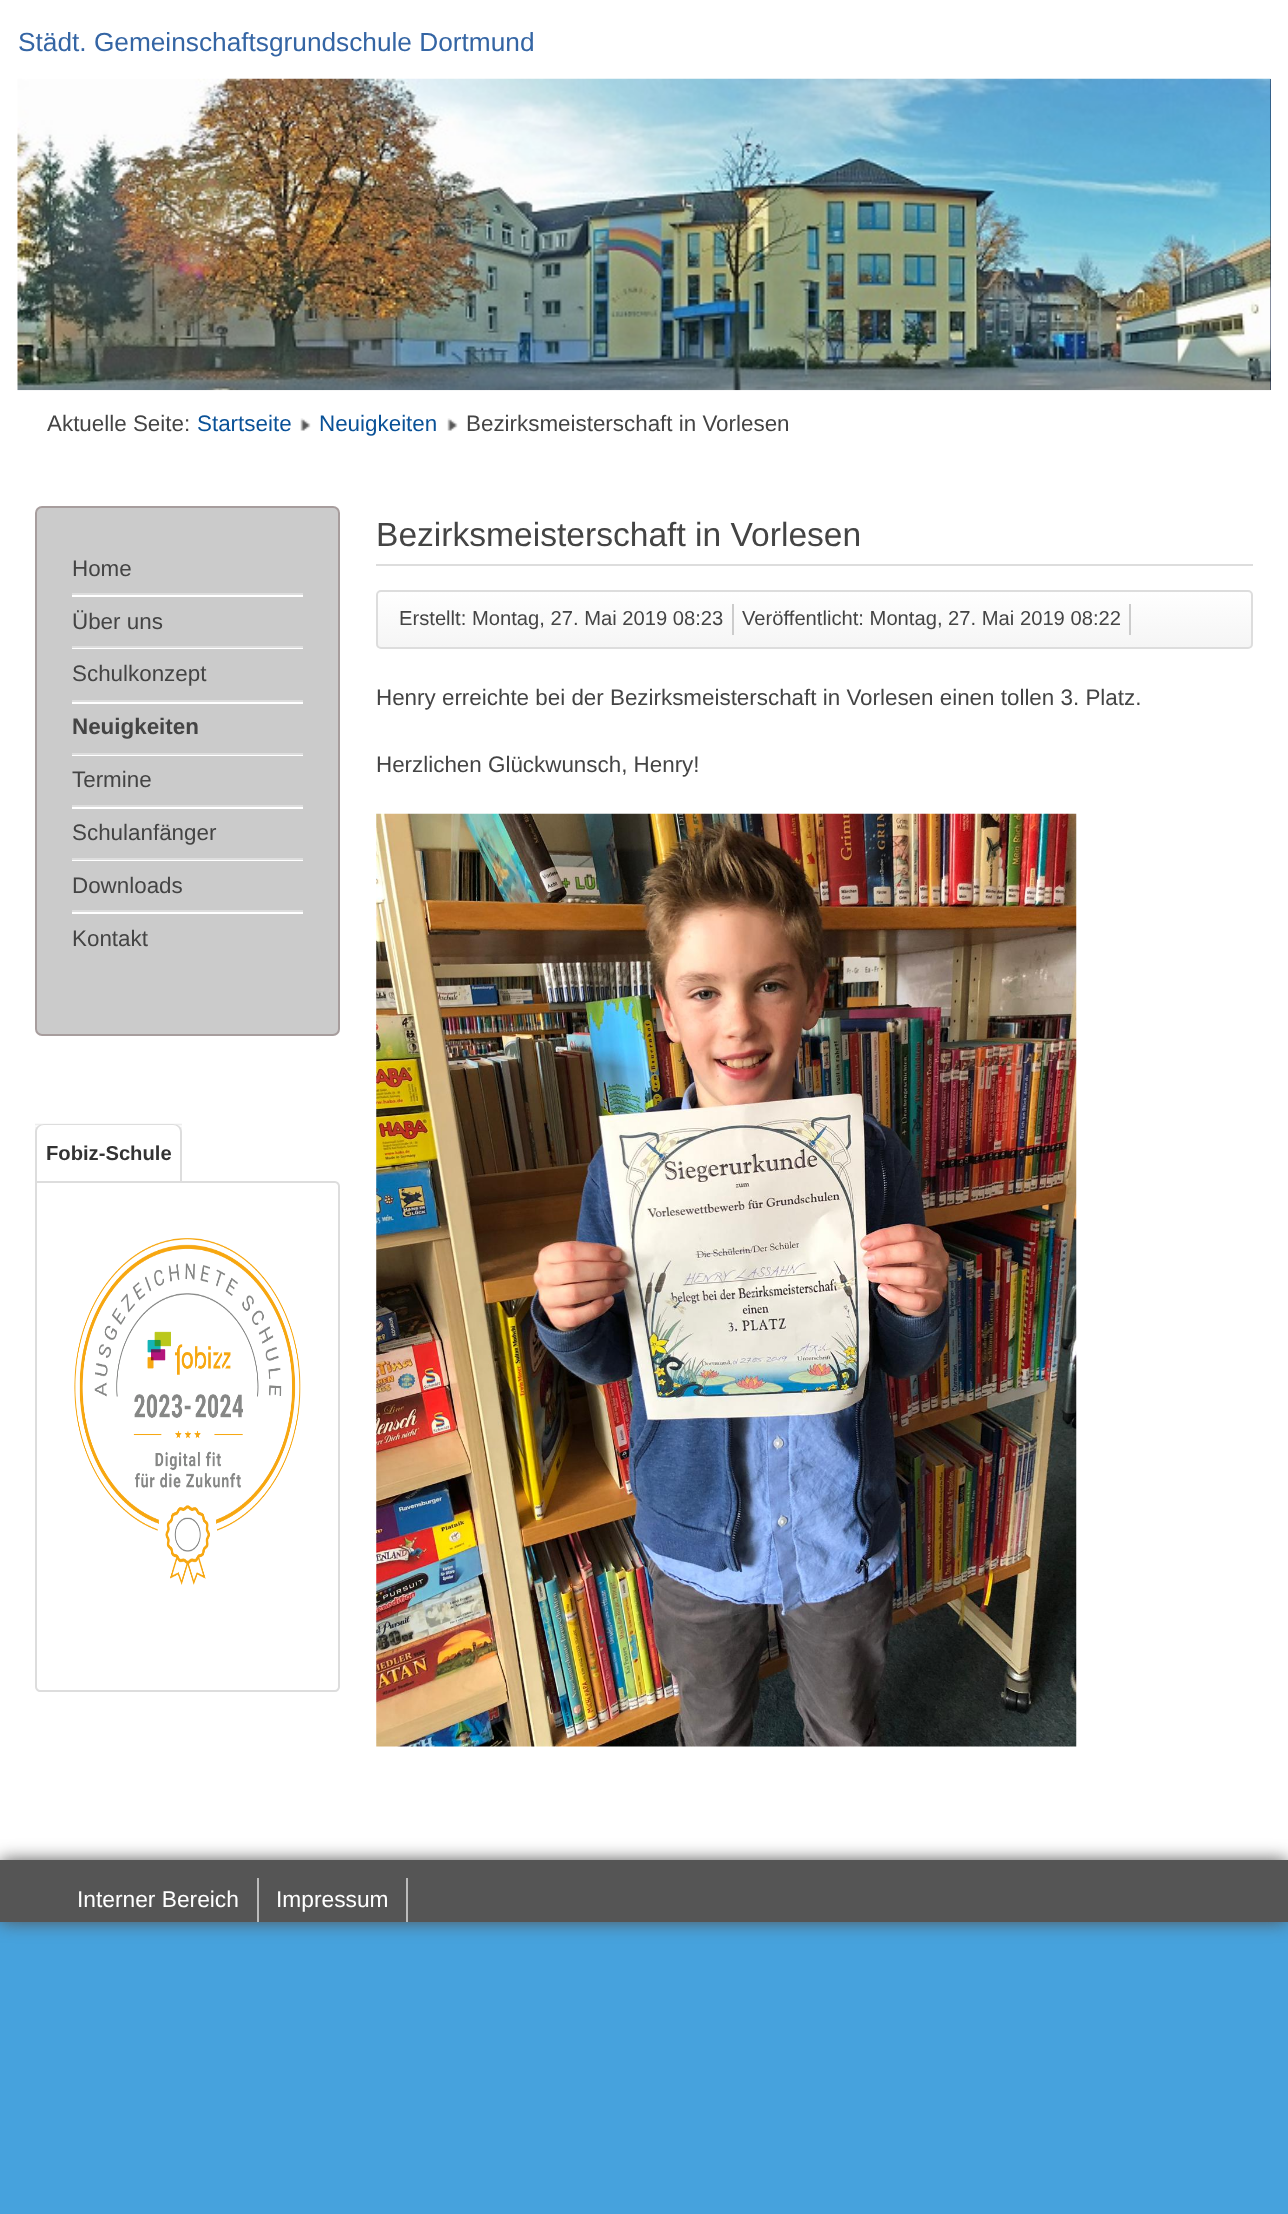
<svg xmlns="http://www.w3.org/2000/svg" width="1288" height="2214">
<defs>
<clipPath id="clip1"><rect x="376" y="590" width="877" height="59" rx="5"/></clipPath>
<linearGradient id="g1" gradientUnits="userSpaceOnUse" x1="815" y1="591" x2="815" y2="648"><stop offset="0" stop-color="#fff"/><stop offset="1" stop-color="#f5f5f5"/></linearGradient>
</defs>
<rect width="100%" height="100%" fill="#46a2dd"/>
<rect width="1288" height="1860" fill="#fff"/>
<text x="18" y="51" style="font-family:Liberation Sans;font-size:26.25px;fill:#3465a4">Städt. Gemeinschaftsgrundschule Dortmund</text>
<rect x="1270" y="79" width="1" height="311" fill="#0c1a3e"/>
<image x="17" y="78" width="1254" height="313" href="media/1.png"/>
<text x="47" y="431" style="font-family:Liberation Sans;font-size:22.4px;fill:#444">Aktuelle Seite:</text>
<text x="197" y="431" style="font-family:Liberation Sans;font-size:22.4px;fill:#095197">Startseite</text>
<image x="300" y="418" width="11" height="13" href="media/2.png"/>
<text x="319" y="431" style="font-family:Liberation Sans;font-size:22.4px;fill:#095197">Neuigkeiten</text>
<image x="447" y="418" width="11" height="13" href="media/2.png"/>
<text x="466" y="431" style="font-family:Liberation Sans;font-size:22.4px;fill:#444">Bezirksmeisterschaft in Vorlesen</text>
<rect x="36" y="507" width="303" height="528" rx="6" fill="#cbcbcb" stroke="#a79d9d" stroke-width="2"/>
<path d="M72 595v2h231v-53v51z" fill="#fff"/>
<rect x="72" y="593" width="231" height="2" fill="#ddd"/>
<text x="72" y="576" style="font-family:Liberation Sans;font-size:22.4px;fill:#444">Home</text>
<path d="M72 648v1h231v-52v51z" fill="#fff"/>
<rect x="72" y="646" width="231" height="2" fill="#ddd"/>
<text x="72" y="629" style="font-family:Liberation Sans;font-size:22.4px;fill:#444">Über uns</text>
<path d="M72 702v2h231v-55v53z" fill="#fff"/>
<rect x="72" y="700" width="231" height="2" fill="#ddd"/>
<text x="72" y="681" style="font-family:Liberation Sans;font-size:22.4px;fill:#444">Schulkonzept</text>
<path d="M72 754v2h231v-52v50z" fill="#fff"/>
<rect x="72" y="753" width="231" height="2" fill="#ddd"/>
<text x="72" y="734" style="font-family:Liberation Sans;font-size:22.4px;font-weight:bold;fill:#444">Neuigkeiten</text>
<path d="M72 807v2h231v-53v51z" fill="#fff"/>
<rect x="72" y="805" width="231" height="2" fill="#ddd"/>
<text x="72" y="787" style="font-family:Liberation Sans;font-size:22.4px;fill:#444">Termine</text>
<path d="M72 859v2h231v-52v50z" fill="#fff"/>
<rect x="72" y="858" width="231" height="2" fill="#ddd"/>
<text x="72" y="840" style="font-family:Liberation Sans;font-size:22.4px;fill:#444">Schulanfänger</text>
<path d="M72 912v2h231v-53v51z" fill="#fff"/>
<rect x="72" y="910" width="231" height="2" fill="#ddd"/>
<text x="72" y="893" style="font-family:Liberation Sans;font-size:22.4px;fill:#444">Downloads</text>
<text x="72" y="946" style="font-family:Liberation Sans;font-size:22.4px;fill:#444">Kontakt</text>
<rect x="35" y="1127" width="147" height="5" fill="#f5f5f5"/>
<image x="35" y="1123" width="147" height="4" href="media/3.png"/>
<path d="M44 1124h129c5 0 9 4 9 9v50h-147v-50c0-5 4-9 9-9z" fill="#fff"/>
<path d="M44 1124h129c5 0 9 3 9 8v51h-147v-51c0-5 4-8 9-8zm0 1h129c4 0 7 3 7 7v51h-143v-51c0-4 3-7 7-7z" fill="#ddd" fill-rule="evenodd"/>
<text x="46" y="1160" style="font-family:Liberation Sans;font-size:20.2px;font-weight:bold;fill:#333">Fobiz-Schule</text>
<path d="M36 1182h299c2 0 4 2 4 4v501c0 2-2 4-4 4h-295c-2 0-4-2-4-4z" fill="#fff" stroke="#ddd" stroke-width="2"/>
<image x="74" y="1238" width="227" height="347" href="media/4.png"/>
<rect x="376" y="564" width="877" height="2" fill="#ddd"/>
<text x="376" y="546" style="font-family:Liberation Sans;font-size:33.6px;fill:#444">Bezirksmeisterschaft in Vorlesen</text>
<g clip-path="url(#clip1)">
<rect x="376" y="592" width="877" height="56" fill="url(#g1)"/>
</g>
<rect x="377" y="591" width="875" height="57" rx="4" fill="none" stroke="#ddd" stroke-width="2"/>
<rect x="732" y="604" width="2" height="31" fill="#ccc"/>
<text x="399" y="625" style="font-family:Liberation Sans;font-size:20.2px;fill:#444">Erstellt: Montag, 27. Mai 2019 08:23</text>
<rect x="1129" y="604" width="2" height="31" fill="#ccc"/>
<text x="742" y="625" style="font-family:Liberation Sans;font-size:20.2px;fill:#444">Veröffentlicht: Montag, 27. Mai 2019 08:22</text>
<text x="376" y="705" style="font-family:Liberation Sans;font-size:22.4px;fill:#444">Henry erreichte bei der Bezirksmeisterschaft in Vorlesen einen tollen 3. Platz.</text>
<text x="376" y="772" style="font-family:Liberation Sans;font-size:22.4px;fill:#444">Herzlichen Glückwunsch, Henry!</text>
<image x="376" y="813" width="701" height="934" href="media/5.png"/>
<rect y="1860" width="1288" height="62" fill="#555" filter="blur(9px)"/>
<rect y="1860" width="1288" height="62" fill="#555"/>
<rect x="257" y="1878" width="2" height="44" fill="#bbb"/>
<text x="77" y="1907" style="font-family:Liberation Sans;font-size:22.75px;fill:#fff">Interner Bereich</text>
<rect x="406" y="1878" width="2" height="44" fill="#bbb"/>
<text x="276" y="1907" style="font-family:Liberation Sans;font-size:22.75px;fill:#fff">Impressum</text>
</svg>
